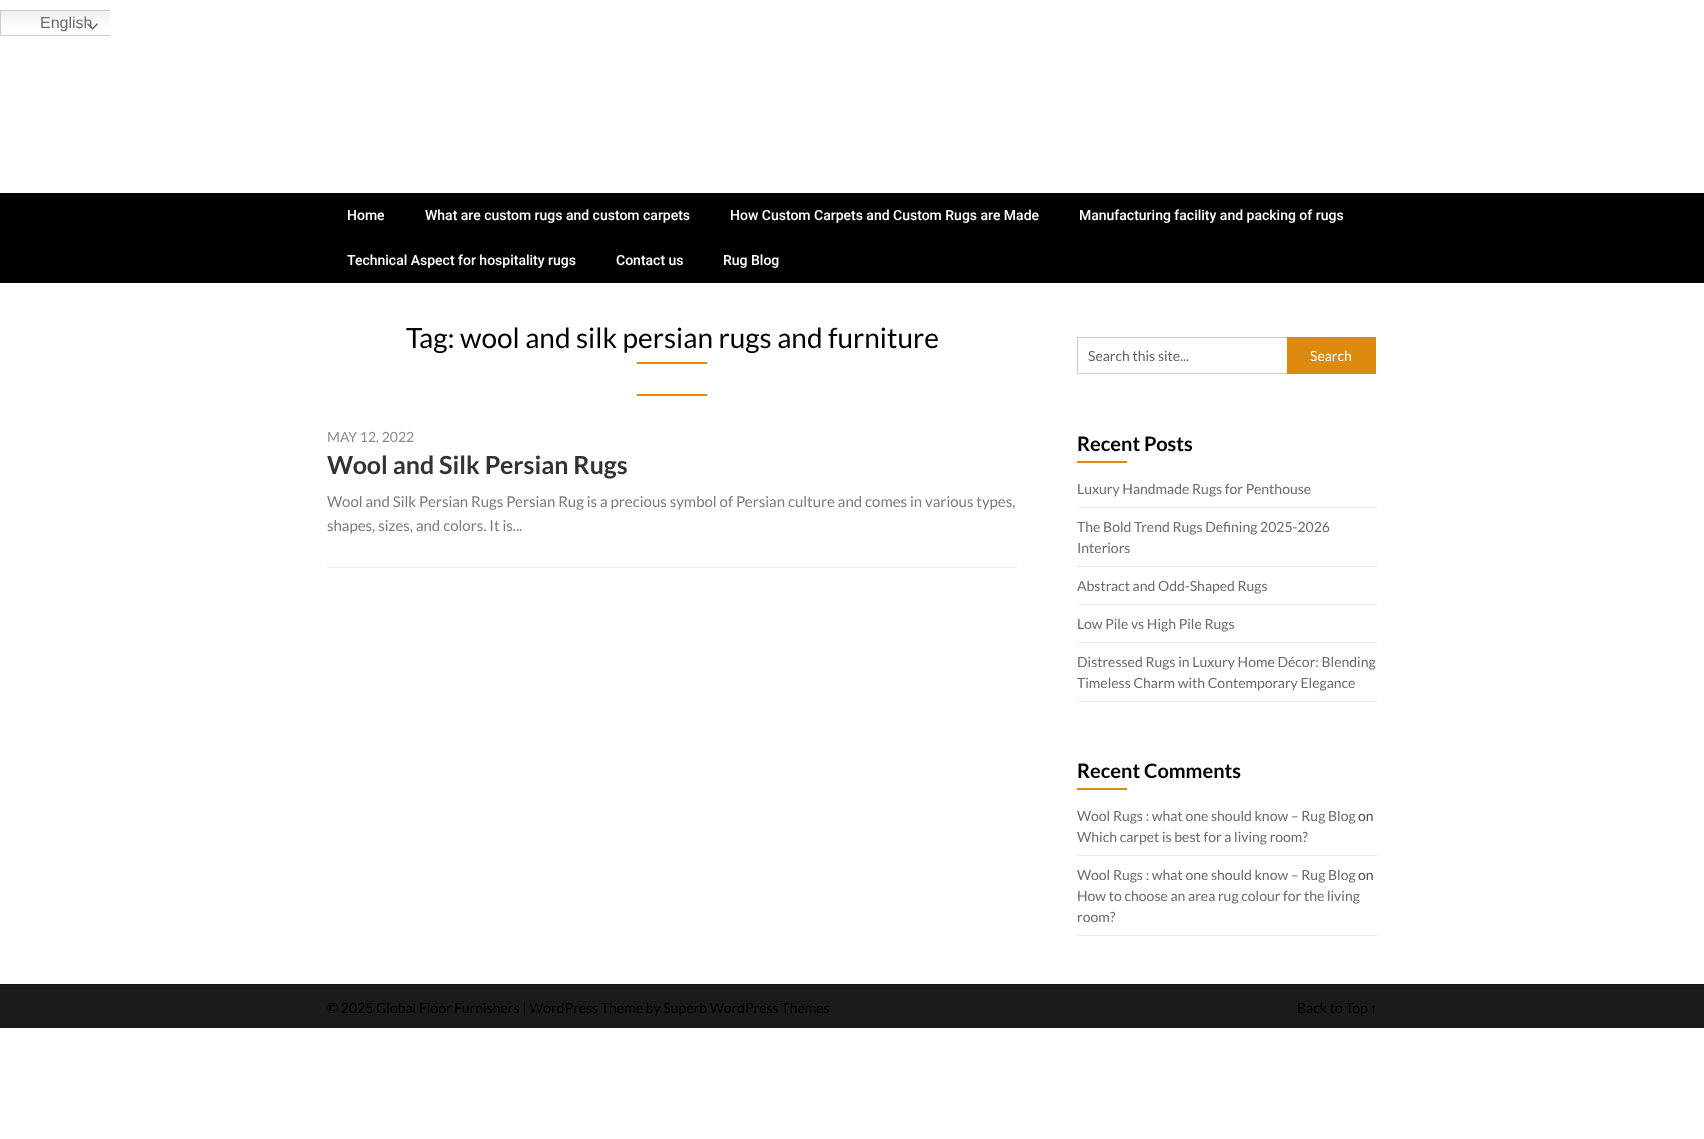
<svg xmlns="http://www.w3.org/2000/svg" width="1704" height="1139">
<defs>
<linearGradient id="g1" gradientUnits="userSpaceOnUse" x1="55" y1="10" x2="55" y2="36"><stop offset="0" stop-color="#efefef"/><stop offset="0.7" stop-color="#fff"/></linearGradient>
<clipPath id="clip1"><rect y="10" width="110" height="26"/></clipPath>
</defs>
<rect width="100%" height="100%" fill="#fff"/>
<rect x="1" y="11" width="109" height="14" fill="url(#g1)"/>
<g clip-path="url(#clip1)">
<rect x="0.5" y="10.5" width="121" height="25" fill="none" stroke="#ccc"/>
</g>
<text x="40" y="28" style="font-family:Liberation Sans;font-size:16px;fill:#6b6b6b">English</text>
<image x="87" y="23" width="11" height="7" href="media/1.png"/>
<rect y="193" width="1704" height="90" fill="#000"/>
<text x="347" y="220" style="font-family:Roboto;font-size:14px;font-weight:500;fill:#fff">Home</text>
<text x="425" y="220" style="font-family:Roboto;font-size:14px;font-weight:500;fill:#fff">What are custom rugs and custom carpets</text>
<text x="730" y="220" style="font-family:Roboto;font-size:14px;font-weight:500;fill:#fff">How Custom Carpets and Custom Rugs are Made</text>
<text x="1079" y="220" style="font-family:Roboto;font-size:14px;font-weight:500;fill:#fff">Manufacturing facility and packing of rugs</text>
<text x="347" y="265" style="font-family:Roboto;font-size:14px;font-weight:500;fill:#fff">Technical Aspect for hospitality rugs</text>
<text x="616" y="265" style="font-family:Roboto;font-size:14px;font-weight:500;fill:#fff">Contact us</text>
<text x="723" y="265" style="font-family:Roboto;font-size:14px;font-weight:500;fill:#fff">Rug Blog</text>
<text x="406" y="348" style="font-family:Lato;font-size:28px;fill:#000">Tag: wool and silk persian rugs and furniture</text>
<rect x="637" y="362" width="70" height="2" fill="#dd8b0f"/>
<rect x="637" y="394" width="70" height="2" fill="#dd8b0f"/>
<rect x="327" y="567" width="690" height="1" fill="#f0f0f0"/>
<text x="327" y="442" style="font-family:Lato;font-size:14px;fill:#8c8c8c">MAY 12, 2022</text>
<text x="327" y="474" style="font-family:Lato;font-size:25px;font-weight:bold;fill:#333">Wool and Silk Persian Rugs</text>
<text x="327" y="507" style="font-family:Lato;font-size:15px;fill:#7b7b7b">Wool and Silk Persian Rugs Persian Rug is a precious symbol of Persian culture and comes in various types,</text>
<text x="327" y="531" style="font-family:Lato;font-size:15px;fill:#7b7b7b">shapes, sizes, and colors. It is...</text>
<rect x="1077" y="337" width="210" height="1" fill="#ccc"/>
<rect x="1077" y="373" width="210" height="1" fill="#ccc"/>
<rect x="1077" y="337" width="1" height="37" fill="#ccc"/>
<text x="1088" y="361" style="font-family:Lato;font-size:14px;fill:#5e656d">Search this site...</text>
<rect x="1287" y="337" width="89" height="37" fill="#dd8b0f"/>
<text x="1310" y="361" style="font-family:Lato;font-size:14px;fill:#fff">Search</text>
<text x="1077" y="451" style="font-family:Lato;font-size:20px;font-weight:bold;fill:#000">Recent Posts</text>
<rect x="1077" y="461" width="50" height="2" fill="#dd8b0f"/>
<rect x="1077" y="507" width="300" height="1" fill="#ebebeb"/>
<text x="1077" y="494" style="font-family:Lato;font-size:14px;fill:#6b6b6b">Luxury Handmade Rugs for Penthouse</text>
<rect x="1077" y="566" width="300" height="1" fill="#ebebeb"/>
<text x="1077" y="532" style="font-family:Lato;font-size:14px;fill:#6b6b6b">The Bold Trend Rugs Defining 2025-2026</text>
<text x="1077" y="553" style="font-family:Lato;font-size:14px;fill:#6b6b6b">Interiors</text>
<rect x="1077" y="604" width="300" height="1" fill="#ebebeb"/>
<text x="1077" y="591" style="font-family:Lato;font-size:14px;fill:#6b6b6b">Abstract and Odd-Shaped Rugs</text>
<rect x="1077" y="642" width="300" height="1" fill="#ebebeb"/>
<text x="1077" y="629" style="font-family:Lato;font-size:14px;fill:#6b6b6b">Low Pile vs High Pile Rugs</text>
<rect x="1077" y="701" width="300" height="1" fill="#ebebeb"/>
<text x="1077" y="667" style="font-family:Lato;font-size:14px;fill:#6b6b6b">Distressed Rugs in Luxury Home Décor: Blending</text>
<text x="1077" y="688" style="font-family:Lato;font-size:14px;fill:#6b6b6b">Timeless Charm with Contemporary Elegance</text>
<text x="1077" y="778" style="font-family:Lato;font-size:20px;font-weight:bold;fill:#000">Recent Comments</text>
<rect x="1077" y="788" width="50" height="2" fill="#dd8b0f"/>
<rect x="1077" y="855" width="300" height="1" fill="#ebebeb"/>
<text x="1077" y="821" style="font-family:Lato;font-size:14px;fill:#6b6b6b">Wool Rugs : what one should know – Rug Blog</text>
<text x="1358" y="821" style="font-family:Lato;font-size:14px;fill:#4a4a4a">on</text>
<text x="1077" y="842" style="font-family:Lato;font-size:14px;fill:#6b6b6b">Which carpet is best for a living room?</text>
<rect x="1077" y="935" width="300" height="1" fill="#ebebeb"/>
<text x="1077" y="880" style="font-family:Lato;font-size:14px;fill:#6b6b6b">Wool Rugs : what one should know – Rug Blog</text>
<text x="1358" y="880" style="font-family:Lato;font-size:14px;fill:#4a4a4a">on</text>
<text x="1077" y="901" style="font-family:Lato;font-size:14px;fill:#6b6b6b">How to choose an area rug colour for the living</text>
<text x="1077" y="922" style="font-family:Lato;font-size:14px;fill:#6b6b6b">room?</text>
<rect y="985" width="1704" height="43" fill="#1b1b1b"/>
<rect y="984" width="1704" height="1" fill="#181818"/>
<text x="327" y="1013" style="font-family:Lato;font-size:14px;fill:#000">© 2025 Global Floor Furnishers | WordPress Theme by Superb WordPress Themes</text>
<text x="1297" y="1013" style="font-family:Lato;font-size:14px;fill:#000">Back to Top</text>
<text x="1370" y="1013" style="font-family:Liberation Sans;font-size:14px;fill:#000">↑</text>
</svg>
